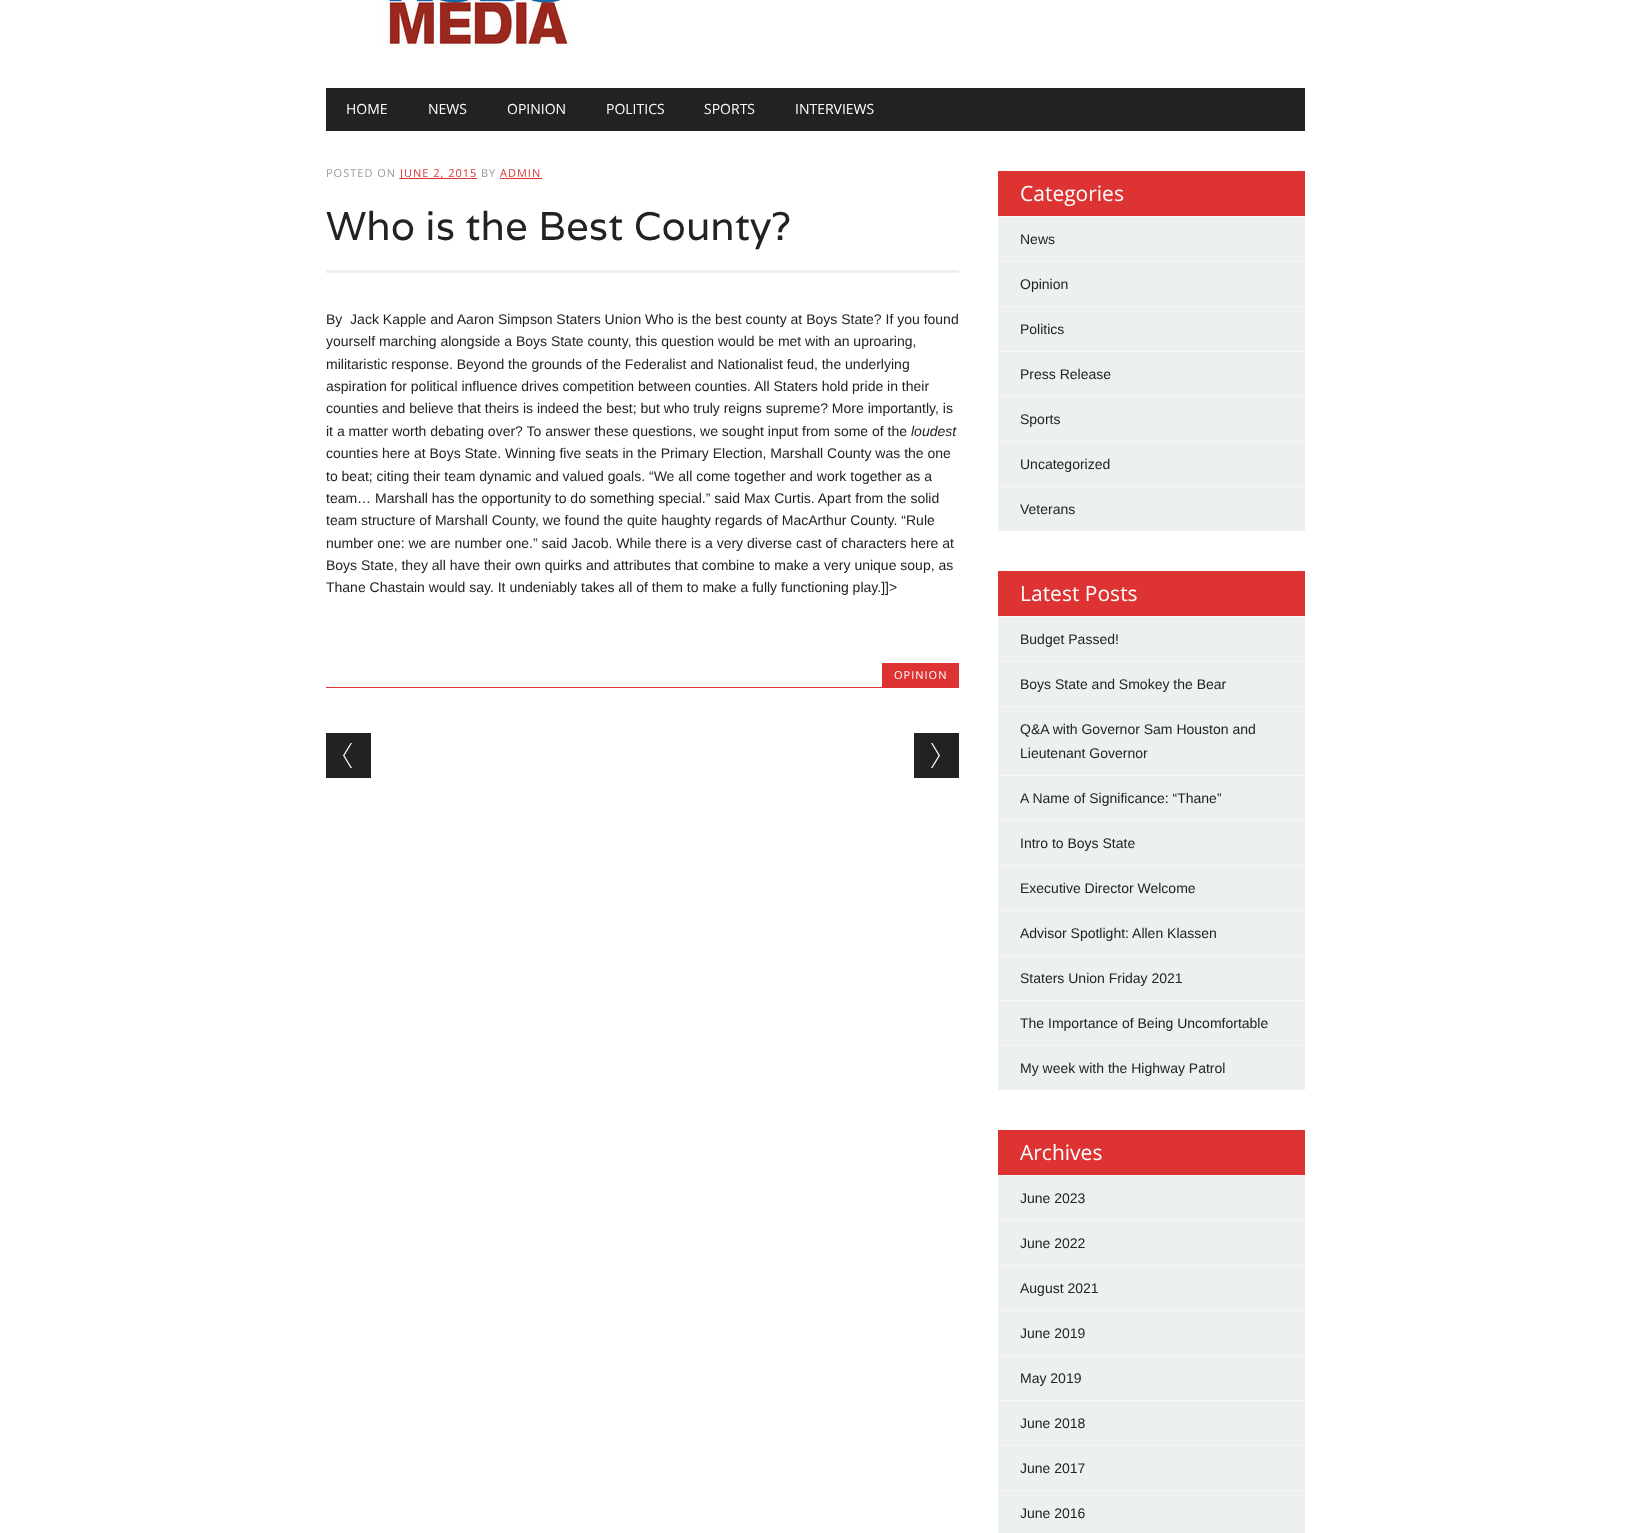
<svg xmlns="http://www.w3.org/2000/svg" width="1631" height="1533">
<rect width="100%" height="100%" fill="#fff"/>
<image x="382" y="0" width="192" height="48" href="media/1.png"/>
<rect x="326" y="88" width="979" height="43" fill="#222"/>
<text x="346" y="114" style="font-family:Open Sans;font-size:14px;fill:#fff">HOME</text>
<text x="428" y="114" style="font-family:Open Sans;font-size:14px;fill:#fff">NEWS</text>
<text x="507" y="114" style="font-family:Open Sans;font-size:14px;fill:#fff">OPINION</text>
<text x="606" y="114" style="font-family:Open Sans;font-size:14px;fill:#fff">POLITICS</text>
<text x="704" y="114" style="font-family:Open Sans;font-size:14px;fill:#fff">SPORTS</text>
<text x="795" y="114" style="font-family:Open Sans;font-size:14px;fill:#fff">INTERVIEWS</text>
<text x="326" y="177" style="font-family:Open Sans;font-size:11px;letter-spacing:1px;fill:#999">POSTED ON</text>
<rect x="400" y="178" width="77" height="1" fill="#d33"/>
<text x="400" y="177" style="font-family:Open Sans;font-size:11px;letter-spacing:1px;fill:#d33">JUNE 2, 2015</text>
<text x="481" y="177" style="font-family:Open Sans;font-size:11px;letter-spacing:1px;fill:#999">BY</text>
<text x="500" y="177" style="font-family:Open Sans;font-size:11px;letter-spacing:1px;fill:#d33">ADMIN</text>
<rect x="500" y="178" width="42" height="1" fill="#d33"/>
<rect x="326" y="270" width="633" height="3" fill="#ecf0f1"/>
<text x="326" y="240" style="font-family:Varela;font-size:40px;fill:#222">Who is the Best County?</text>
<text x="326" y="324" style="font-family:Liberation Sans;font-size:14px;fill:#222" xml:space="preserve">By  Jack Kapple and Aaron Simpson Staters Union Who is the best county at Boys State? If you found</text>
<text x="326" y="346" style="font-family:Liberation Sans;font-size:14px;fill:#222">yourself marching alongside a Boys State county, this question would be met with an uproaring,</text>
<text x="326" y="369" style="font-family:Liberation Sans;font-size:14px;fill:#222">militaristic response. Beyond the grounds of the Federalist and Nationalist feud, the underlying</text>
<text x="326" y="391" style="font-family:Liberation Sans;font-size:14px;fill:#222">aspiration for political influence drives competition between counties. All Staters hold pride in their</text>
<text x="326" y="413" style="font-family:Liberation Sans;font-size:14px;fill:#222">counties and believe that theirs is indeed the best; but who truly reigns supreme? More importantly, is</text>
<text x="326" y="436" style="font-family:Liberation Sans;font-size:14px;fill:#222">it a matter worth debating over? To answer these questions, we sought input from some of the</text>
<text x="911" y="436" style="font-family:Liberation Sans;font-size:14px;font-style:italic;fill:#222">loudest</text>
<text x="326" y="458" style="font-family:Liberation Sans;font-size:14px;fill:#222">counties here at Boys State. Winning five seats in the Primary Election, Marshall County was the one</text>
<text x="326" y="481" style="font-family:Liberation Sans;font-size:14px;fill:#222">to beat; citing their team dynamic and valued goals. “We all come together and work together as a</text>
<text x="326" y="503" style="font-family:Liberation Sans;font-size:14px;fill:#222">team… Marshall has the opportunity to do something special.” said Max Curtis. Apart from the solid</text>
<text x="326" y="525" style="font-family:Liberation Sans;font-size:14px;fill:#222">team structure of Marshall County, we found the quite haughty regards of MacArthur County. “Rule</text>
<text x="326" y="548" style="font-family:Liberation Sans;font-size:14px;fill:#222">number one: we are number one.” said Jacob. While there is a very diverse cast of characters here at</text>
<text x="326" y="570" style="font-family:Liberation Sans;font-size:14px;fill:#222">Boys State, they all have their own quirks and attributes that combine to make a very unique soup, as</text>
<text x="326" y="592" style="font-family:Liberation Sans;font-size:14px;fill:#222">Thane Chastain would say. It undeniably takes all of them to make a fully functioning play.]]&gt;</text>
<rect x="882" y="663" width="77" height="24" fill="#d33"/>
<text x="894" y="679" style="font-family:Open Sans;font-size:11px;letter-spacing:1px;fill:#fff">OPINION</text>
<rect x="326" y="687" width="633" height="1" fill="#d33"/>
<rect x="326" y="733" width="45" height="45" fill="#222"/>
<image x="343" y="743" width="9" height="25" href="media/2.png"/>
<rect x="914" y="733" width="45" height="45" fill="#222"/>
<image x="931" y="743" width="9" height="25" href="media/3.png"/>
<rect x="998" y="217" width="307" height="314" fill="#ecf0f1"/>
<rect x="998" y="171" width="307" height="45" fill="#d33"/>
<text x="1020" y="201" style="font-family:Open Sans;font-size:21px;fill:#fff">Categories</text>
<rect x="998" y="216" width="307" height="1" fill="#f6f8f8"/>
<text x="1020" y="244" style="font-family:Liberation Sans;font-size:14px;fill:#222">News</text>
<rect x="998" y="261" width="307" height="1" fill="#f6f8f8"/>
<text x="1020" y="289" style="font-family:Liberation Sans;font-size:14px;fill:#222">Opinion</text>
<rect x="998" y="306" width="307" height="1" fill="#f6f8f8"/>
<text x="1020" y="334" style="font-family:Liberation Sans;font-size:14px;fill:#222">Politics</text>
<rect x="998" y="351" width="307" height="1" fill="#f6f8f8"/>
<text x="1020" y="379" style="font-family:Liberation Sans;font-size:14px;fill:#222">Press Release</text>
<rect x="998" y="396" width="307" height="1" fill="#f6f8f8"/>
<text x="1020" y="424" style="font-family:Liberation Sans;font-size:14px;fill:#222">Sports</text>
<rect x="998" y="441" width="307" height="1" fill="#f6f8f8"/>
<text x="1020" y="469" style="font-family:Liberation Sans;font-size:14px;fill:#222">Uncategorized</text>
<rect x="998" y="486" width="307" height="1" fill="#f6f8f8"/>
<text x="1020" y="514" style="font-family:Liberation Sans;font-size:14px;fill:#222">Veterans</text>
<rect x="998" y="617" width="307" height="473" fill="#ecf0f1"/>
<rect x="998" y="571" width="307" height="45" fill="#d33"/>
<text x="1020" y="601" style="font-family:Open Sans;font-size:21px;fill:#fff">Latest Posts</text>
<rect x="998" y="616" width="307" height="1" fill="#f6f8f8"/>
<text x="1020" y="644" style="font-family:Liberation Sans;font-size:14px;fill:#222">Budget Passed!</text>
<rect x="998" y="661" width="307" height="1" fill="#f6f8f8"/>
<text x="1020" y="689" style="font-family:Liberation Sans;font-size:14px;fill:#222">Boys State and Smokey the Bear</text>
<rect x="998" y="706" width="307" height="1" fill="#f6f8f8"/>
<text x="1020" y="734" style="font-family:Liberation Sans;font-size:14px;fill:#222">Q&amp;A with Governor Sam Houston and</text>
<text x="1020" y="758" style="font-family:Liberation Sans;font-size:14px;fill:#222">Lieutenant Governor</text>
<rect x="998" y="775" width="307" height="1" fill="#f6f8f8"/>
<text x="1020" y="803" style="font-family:Liberation Sans;font-size:14px;fill:#222">A Name of Significance: “Thane”</text>
<rect x="998" y="820" width="307" height="1" fill="#f6f8f8"/>
<text x="1020" y="848" style="font-family:Liberation Sans;font-size:14px;fill:#222">Intro to Boys State</text>
<rect x="998" y="865" width="307" height="1" fill="#f6f8f8"/>
<text x="1020" y="893" style="font-family:Liberation Sans;font-size:14px;fill:#222">Executive Director Welcome</text>
<rect x="998" y="910" width="307" height="1" fill="#f6f8f8"/>
<text x="1020" y="938" style="font-family:Liberation Sans;font-size:14px;fill:#222">Advisor Spotlight: Allen Klassen</text>
<rect x="998" y="955" width="307" height="1" fill="#f6f8f8"/>
<text x="1020" y="983" style="font-family:Liberation Sans;font-size:14px;fill:#222">Staters Union Friday 2021</text>
<rect x="998" y="1000" width="307" height="1" fill="#f6f8f8"/>
<text x="1020" y="1028" style="font-family:Liberation Sans;font-size:14px;fill:#222">The Importance of Being Uncomfortable</text>
<rect x="998" y="1045" width="307" height="1" fill="#f6f8f8"/>
<text x="1020" y="1073" style="font-family:Liberation Sans;font-size:14px;fill:#222">My week with the Highway Patrol</text>
<rect x="998" y="1176" width="307" height="357" fill="#ecf0f1"/>
<rect x="998" y="1130" width="307" height="45" fill="#d33"/>
<text x="1020" y="1160" style="font-family:Open Sans;font-size:21px;fill:#fff">Archives</text>
<rect x="998" y="1175" width="307" height="1" fill="#f6f8f8"/>
<text x="1020" y="1203" style="font-family:Liberation Sans;font-size:14px;fill:#222">June 2023</text>
<rect x="998" y="1220" width="307" height="1" fill="#f6f8f8"/>
<text x="1020" y="1248" style="font-family:Liberation Sans;font-size:14px;fill:#222">June 2022</text>
<rect x="998" y="1265" width="307" height="1" fill="#f6f8f8"/>
<text x="1020" y="1293" style="font-family:Liberation Sans;font-size:14px;fill:#222">August 2021</text>
<rect x="998" y="1310" width="307" height="1" fill="#f6f8f8"/>
<text x="1020" y="1338" style="font-family:Liberation Sans;font-size:14px;fill:#222">June 2019</text>
<rect x="998" y="1355" width="307" height="1" fill="#f6f8f8"/>
<text x="1020" y="1383" style="font-family:Liberation Sans;font-size:14px;fill:#222">May 2019</text>
<rect x="998" y="1400" width="307" height="1" fill="#f6f8f8"/>
<text x="1020" y="1428" style="font-family:Liberation Sans;font-size:14px;fill:#222">June 2018</text>
<rect x="998" y="1445" width="307" height="1" fill="#f6f8f8"/>
<text x="1020" y="1473" style="font-family:Liberation Sans;font-size:14px;fill:#222">June 2017</text>
<rect x="998" y="1490" width="307" height="1" fill="#f6f8f8"/>
<text x="1020" y="1518" style="font-family:Liberation Sans;font-size:14px;fill:#222">June 2016</text>
</svg>
